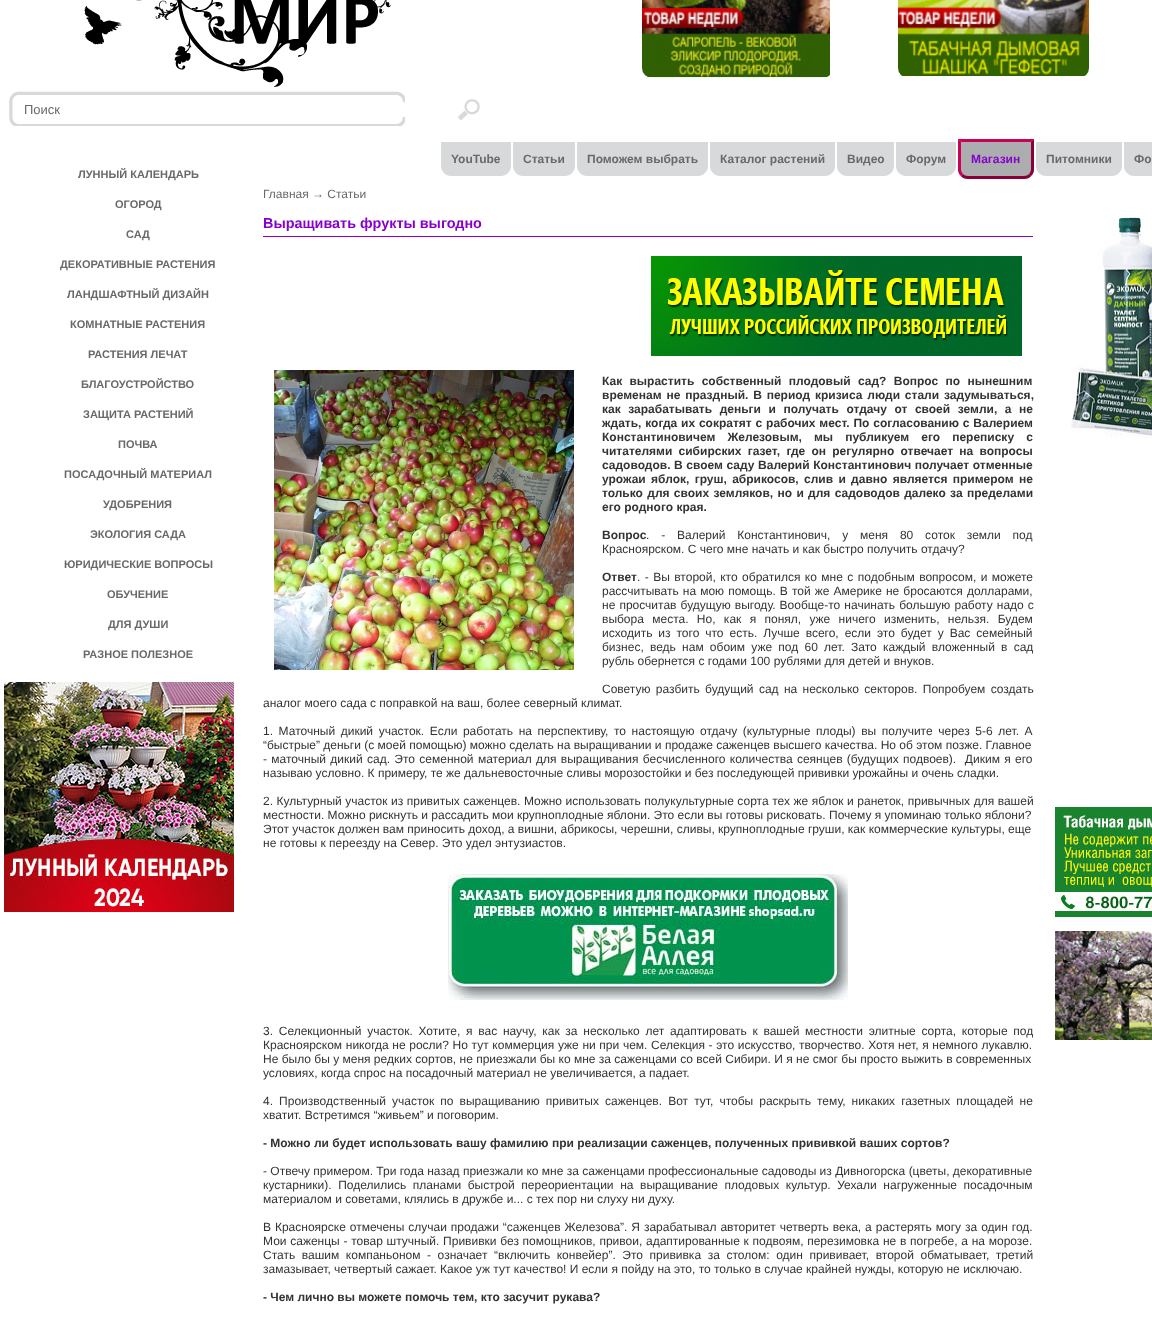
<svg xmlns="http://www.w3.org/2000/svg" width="1152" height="1326">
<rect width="100%" height="100%" fill="#fff"/>
<image x="642" y="0" width="188" height="78" href="media/1.png"/>
<image x="898" y="0" width="191" height="76" href="media/2.png"/>
<image x="84" y="0" width="307" height="87" href="media/3.png"/>
<image x="9" y="91" width="396" height="35" href="media/4.png"/>
<rect x="402" y="102" width="3" height="15" fill="#fff"/>
<text x="24" y="114" style="font-family:Liberation Sans;font-size:13px;fill:#696969">Поиск</text>
<image x="458" y="99" width="22" height="21" href="media/5.png"/>
<text x="78" y="178" style="font-family:Liberation Sans;font-size:11px;font-weight:bold;fill:#696969">ЛУННЫЙ КАЛЕНДАРЬ</text>
<text x="115" y="208" style="font-family:Liberation Sans;font-size:11px;font-weight:bold;fill:#696969">ОГОРОД</text>
<text x="126" y="238" style="font-family:Liberation Sans;font-size:11px;font-weight:bold;fill:#696969">САД</text>
<text x="60" y="268" style="font-family:Liberation Sans;font-size:11px;font-weight:bold;fill:#696969">ДЕКОРАТИВНЫЕ РАСТЕНИЯ</text>
<text x="67" y="298" style="font-family:Liberation Sans;font-size:11px;font-weight:bold;fill:#696969">ЛАНДШАФТНЫЙ ДИЗАЙН</text>
<text x="70" y="328" style="font-family:Liberation Sans;font-size:11px;font-weight:bold;fill:#696969">КОМНАТНЫЕ РАСТЕНИЯ</text>
<text x="88" y="358" style="font-family:Liberation Sans;font-size:11px;font-weight:bold;fill:#696969">РАСТЕНИЯ ЛЕЧАТ</text>
<text x="81" y="388" style="font-family:Liberation Sans;font-size:11px;font-weight:bold;fill:#696969">БЛАГОУСТРОЙСТВО</text>
<text x="83" y="418" style="font-family:Liberation Sans;font-size:11px;font-weight:bold;fill:#696969">ЗАЩИТА РАСТЕНИЙ</text>
<text x="118" y="448" style="font-family:Liberation Sans;font-size:11px;font-weight:bold;fill:#696969">ПОЧВА</text>
<text x="64" y="478" style="font-family:Liberation Sans;font-size:11px;font-weight:bold;fill:#696969">ПОСАДОЧНЫЙ МАТЕРИАЛ</text>
<text x="103" y="508" style="font-family:Liberation Sans;font-size:11px;font-weight:bold;fill:#696969">УДОБРЕНИЯ</text>
<text x="90" y="538" style="font-family:Liberation Sans;font-size:11px;font-weight:bold;fill:#696969">ЭКОЛОГИЯ САДА</text>
<text x="64" y="568" style="font-family:Liberation Sans;font-size:11px;font-weight:bold;fill:#696969">ЮРИДИЧЕСКИЕ ВОПРОСЫ</text>
<text x="107" y="598" style="font-family:Liberation Sans;font-size:11px;font-weight:bold;fill:#696969">ОБУЧЕНИЕ</text>
<text x="108" y="628" style="font-family:Liberation Sans;font-size:11px;font-weight:bold;fill:#696969">ДЛЯ ДУШИ</text>
<text x="83" y="658" style="font-family:Liberation Sans;font-size:11px;font-weight:bold;fill:#696969">РАЗНОЕ ПОЛЕЗНОЕ</text>
<image x="4" y="682" width="230" height="230" href="media/6.png"/>
<path d="M441 142h70v24c0 5.5-4.5 10-10 10h-50c-5.5 0-10-4.5-10-10z" fill="#d8d9da"/>
<text x="451" y="163" style="font-family:Liberation Sans;font-size:12px;font-weight:bold;fill:#696969">YouTube</text>
<path d="M513 142h62v24c0 5.5-4.5 10-10 10h-42c-5.5 0-10-4.5-10-10z" fill="#d8d9da"/>
<text x="523" y="163" style="font-family:Liberation Sans;font-size:12px;font-weight:bold;fill:#696969">Статьи</text>
<path d="M577 142h131v24c0 5.5-4.5 10-10 10h-111c-5.5 0-10-4.5-10-10z" fill="#d8d9da"/>
<text x="587" y="163" style="font-family:Liberation Sans;font-size:12px;font-weight:bold;fill:#696969">Поможем выбрать</text>
<path d="M710 142h125v24c0 5.5-4.5 10-10 10h-105c-5.5 0-10-4.5-10-10z" fill="#d8d9da"/>
<text x="720" y="163" style="font-family:Liberation Sans;font-size:12px;font-weight:bold;fill:#696969">Каталог растений</text>
<path d="M837 142h57v24c0 5.5-4.5 10-10 10h-37c-5.5 0-10-4.5-10-10z" fill="#d8d9da"/>
<text x="847" y="163" style="font-family:Liberation Sans;font-size:12px;font-weight:bold;fill:#696969">Видео</text>
<path d="M896 142h60v24c0 5.5-4.5 10-10 10h-40c-5.5 0-10-4.5-10-10z" fill="#d8d9da"/>
<text x="906" y="163" style="font-family:Liberation Sans;font-size:12px;font-weight:bold;fill:#696969">Форум</text>
<path d="M958 139h76v30c0 5.5-4.5 10-10 10h-56c-5.5 0-10-4.5-10-10z" fill="#abadaf"/>
<path d="M958 139l3 3h70l3-3z" fill="#cd0059"/>
<path d="M1034 139l-3 3v27c0 2-1 4-2 5l2 2c2-1.5 3-4 3-7z" fill="#89003b"/>
<path d="M968 179h56c3 0 6-1 7-3l-2-2c-1 1-3 2-5 2h-56c-2 0-4-1-5-2l-2 2c1 2 4 3 7 3z" fill="#89003b"/>
<path d="M961 142l-3-3v30c0 3 1 5.5 3 7l2-2c-1-1-2-3-2-5z" fill="#cd0059"/>
<text x="971" y="163" style="font-family:Liberation Sans;font-size:12px;font-weight:bold;fill:#80c">Магазин</text>
<path d="M1036 142h86v24c0 5.5-4.5 10-10 10h-66c-5.5 0-10-4.5-10-10z" fill="#d8d9da"/>
<text x="1046" y="163" style="font-family:Liberation Sans;font-size:12px;font-weight:bold;fill:#696969">Питомники</text>
<path d="M1124 142h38v24c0 5.5-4.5 10-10 10h-18c-5.5 0-10-4.5-10-10z" fill="#d8d9da"/>
<text x="1134" y="163" style="font-family:Liberation Sans;font-size:12px;font-weight:bold;fill:#696969">Фо</text>
<text x="263" y="198" style="font-family:Liberation Sans;font-size:12px;fill:#696969">Главная → Статьи</text>
<rect x="263" y="236" width="770" height="1" fill="#80c"/>
<text x="263" y="228" style="font-family:Liberation Sans;font-size:14.4px;font-weight:bold;fill:#80c">Выращивать фрукты выгодно</text>
<image x="651" y="256" width="371" height="100" href="media/7.png"/>
<image x="274" y="370" width="300" height="300" href="media/8.png"/>
<text x="602" y="385" word-spacing="4" style="font-family:Liberation Sans;font-size:12px;font-weight:bold;fill:#333">Как вырастить собственный плодовый сад? Вопрос по нынешним</text>
<text x="602" y="399" word-spacing="1.5" style="font-family:Liberation Sans;font-size:12px;font-weight:bold;fill:#333">временам не праздный. В период кризиса люди стали задумываться,</text>
<text x="602" y="413" word-spacing="4.25" style="font-family:Liberation Sans;font-size:12px;font-weight:bold;fill:#333">как зарабатывать деньги и получать отдачу от своей земли, а не</text>
<text x="602" y="427" word-spacing="0.5" style="font-family:Liberation Sans;font-size:12px;font-weight:bold;fill:#333">ждать, когда их сократят с рабочих мест. По согласованию с Валерием</text>
<text x="602" y="441" word-spacing="8.75" style="font-family:Liberation Sans;font-size:12px;font-weight:bold;fill:#333">Константиновичем Железовым, мы публикуем его переписку с</text>
<text x="602" y="455" word-spacing="2.9" style="font-family:Liberation Sans;font-size:12px;font-weight:bold;fill:#333">читателями сибирских газет, где он регулярно отвечает на вопросы</text>
<text x="602" y="469" word-spacing="0.25" style="font-family:Liberation Sans;font-size:12px;font-weight:bold;fill:#333">садоводов. В своем саду Валерий Константинович получает отменные</text>
<text x="602" y="483" word-spacing="2" style="font-family:Liberation Sans;font-size:12px;font-weight:bold;fill:#333">урожаи яблок, груш, абрикосов, слив и давно является примером не</text>
<text x="602" y="497" word-spacing="1" style="font-family:Liberation Sans;font-size:12px;font-weight:bold;fill:#333">только для своих земляков, но и для садоводов далеко за пределами</text>
<text x="602" y="511" style="font-family:Liberation Sans;font-size:12px;font-weight:bold;fill:#333">его родного края.</text>
<text x="602" y="539" style="font-family:Liberation Sans;font-size:12px;font-weight:bold;fill:#333">Вопрос</text>
<text x="646" y="539" word-spacing="8.5" style="font-family:Liberation Sans;font-size:12px;fill:#333">. - Валерий Константинович, у меня 80 соток земли под</text>
<text x="602" y="553" style="font-family:Liberation Sans;font-size:12px;fill:#333">Красноярском. С чего мне начать и как быстро получить отдачу?</text>
<text x="602" y="581" style="font-family:Liberation Sans;font-size:12px;font-weight:bold;fill:#333">Ответ</text>
<text x="637" y="581" word-spacing="1.1" style="font-family:Liberation Sans;font-size:12px;fill:#333">. - Вы второй, кто обратился ко мне с подобным вопросом, и можете</text>
<text x="602" y="595" word-spacing="0.75" style="font-family:Liberation Sans;font-size:12px;fill:#333">рассчитывать на мою помощь. В той же Америке не бросаются долларами,</text>
<text x="602" y="609" word-spacing="0.75" style="font-family:Liberation Sans;font-size:12px;fill:#333">не просчитав будущую выгоду. Вообще-то начинать большую работу надо с</text>
<text x="602" y="623" word-spacing="5" style="font-family:Liberation Sans;font-size:12px;fill:#333">выбора места. Но, как я понял, уже ничего изменить, нельзя. Будем</text>
<text x="602" y="637" word-spacing="2.6" style="font-family:Liberation Sans;font-size:12px;fill:#333">исходить из того что есть. Лучше всего, если это будет у Вас семейный</text>
<text x="602" y="651" word-spacing="2.9" style="font-family:Liberation Sans;font-size:12px;fill:#333">бизнес, ведь нам обоим уже под 60 лет. Зато каждый вложенный в сад</text>
<text x="602" y="665" style="font-family:Liberation Sans;font-size:12px;fill:#333">рубль обернется с годами 100 рублями для детей и внуков.</text>
<text x="602" y="693" word-spacing="2" style="font-family:Liberation Sans;font-size:12px;fill:#333">Советую разбить будущий сад на несколько секторов. Попробуем создать</text>
<text x="263" y="707" style="font-family:Liberation Sans;font-size:12px;fill:#333">аналог моего сада с поправкой на ваш, более северный климат.</text>
<text x="263" y="735" word-spacing="2.25" style="font-family:Liberation Sans;font-size:12px;fill:#333">1. Маточный дикий участок. Если работать на перспективу, то настоящую отдачу (культурные плоды) вы получите через 5-6 лет. А</text>
<text x="263" y="749" style="font-family:Liberation Sans;font-size:12px;fill:#333">“быстрые” деньги (с моей помощью) можно сделать на выращивании и продаже саженцев высшего качества. Но об этом позже. Главное</text>
<text x="263" y="763" word-spacing="1" style="font-family:Liberation Sans;font-size:12px;fill:#333" xml:space="preserve">- маточный дикий сад. Это семенной материал для выращивания бесчисленного количества сеянцев (будущих подвоев).  Диким я его</text>
<text x="263" y="777" style="font-family:Liberation Sans;font-size:12px;fill:#333">называю условно. К примеру, те же дальневосточные сливы морозостойки и без последующей прививки урожайны и очень сладки.</text>
<text x="263" y="805" word-spacing="0.2" style="font-family:Liberation Sans;font-size:12px;fill:#333">2. Культурный участок из привитых саженцев. Можно использовать полукультурные сорта тех же яблок и ранеток, привычных для вашей</text>
<text x="263" y="819" style="font-family:Liberation Sans;font-size:12px;fill:#333">местности. Можно рискнуть и рассадить мои крупноплодные яблони. Это если вы готовы рисковать. Почему я упоминаю только яблони?</text>
<text x="263" y="833" style="font-family:Liberation Sans;font-size:12px;fill:#333">Этот участок должен вам приносить доход, а вишни, абрикосы, черешни, сливы, крупноплодные груши, как коммерческие культуры, еще</text>
<text x="263" y="847" style="font-family:Liberation Sans;font-size:12px;fill:#333">не готовы к переезду на Север. Это удел энтузиастов.</text>
<image x="448" y="874" width="400" height="126" href="media/9.png"/>
<text x="263" y="1035" word-spacing="2.4" style="font-family:Liberation Sans;font-size:12px;fill:#333">3. Селекционный участок. Хотите, я вас научу, как за несколько лет адаптировать к вашей местности элитные сорта, которые под</text>
<text x="263" y="1049" word-spacing="0.3" style="font-family:Liberation Sans;font-size:12px;fill:#333">Красноярском никогда не росли? Но тут коммерция уже ни при чем. Селекция - это искусство, творчество. Хотя нет, я немного лукавлю.</text>
<text x="263" y="1063" style="font-family:Liberation Sans;font-size:12px;fill:#333">Не было бы у меня редких сортов, не приезжали бы ко мне за саженцами со всей Сибири. И я не смог бы просто выжить в современных</text>
<text x="263" y="1077" style="font-family:Liberation Sans;font-size:12px;fill:#333">условиях, когда спрос на посадочный материал не увеличивается, а падает.</text>
<text x="263" y="1105" word-spacing="2.75" style="font-family:Liberation Sans;font-size:12px;fill:#333">4. Производственный участок по выращиванию привитых саженцев. Вот тут, чтобы раскрыть тему, никаких газетных площадей не</text>
<text x="263" y="1119" style="font-family:Liberation Sans;font-size:12px;fill:#333">хватит. Встретимся “живьем” и поговорим.</text>
<text x="263" y="1147" style="font-family:Liberation Sans;font-size:12px;font-weight:bold;fill:#333">- Можно ли будет использовать вашу фамилию при реализации саженцев, полученных прививкой ваших сортов?</text>
<text x="263" y="1175" style="font-family:Liberation Sans;font-size:12px;fill:#333">- Отвечу примером. Три года назад приезжали ко мне за саженцами профессиональные садоводы из Дивногорска (цветы, декоративные</text>
<text x="263" y="1189" word-spacing="3.25" style="font-family:Liberation Sans;font-size:12px;fill:#333">кустарники). Поделились планами быстрой переориентации на выращивание плодовых культур. Уехали нагруженные посадочным</text>
<text x="263" y="1203" style="font-family:Liberation Sans;font-size:12px;fill:#333">материалом и советами, клялись в дружбе и... с тех пор ни слуху ни духу.</text>
<text x="263" y="1231" word-spacing="0.6" style="font-family:Liberation Sans;font-size:12px;fill:#333">В Красноярске отмечены случаи продажи “саженцев Железова”. Я зарабатывал авторитет четверть века, а растерять могу за один год.</text>
<text x="263" y="1245" word-spacing="0.4" style="font-family:Liberation Sans;font-size:12px;fill:#333">Мои саженцы - товар штучный. Прививки без помощников, привои, адаптированные к подвоям, перезимовка не в погребе, а на морозе.</text>
<text x="263" y="1259" word-spacing="3.25" style="font-family:Liberation Sans;font-size:12px;fill:#333">Стать вашим компаньоном - означает “включить конвейер”. Это прививка за столом: один прививает, второй обматывает, третий</text>
<text x="263" y="1273" style="font-family:Liberation Sans;font-size:12px;fill:#333">замазывает, четвертый сажает. Какое уж тут качество! И если я пойду на это, то только в случае крайней нужды, которую не исключаю.</text>
<text x="263" y="1301" style="font-family:Liberation Sans;font-size:12px;font-weight:bold;fill:#333">- Чем лично вы можете помочь тем, кто засучит рукава?</text>
<image x="1071" y="217" width="81" height="221" href="media/10.png"/>
<image x="1055" y="807" width="97" height="110" href="media/11.png"/>
<image x="1055" y="931" width="97" height="109" href="media/12.png"/>
</svg>
